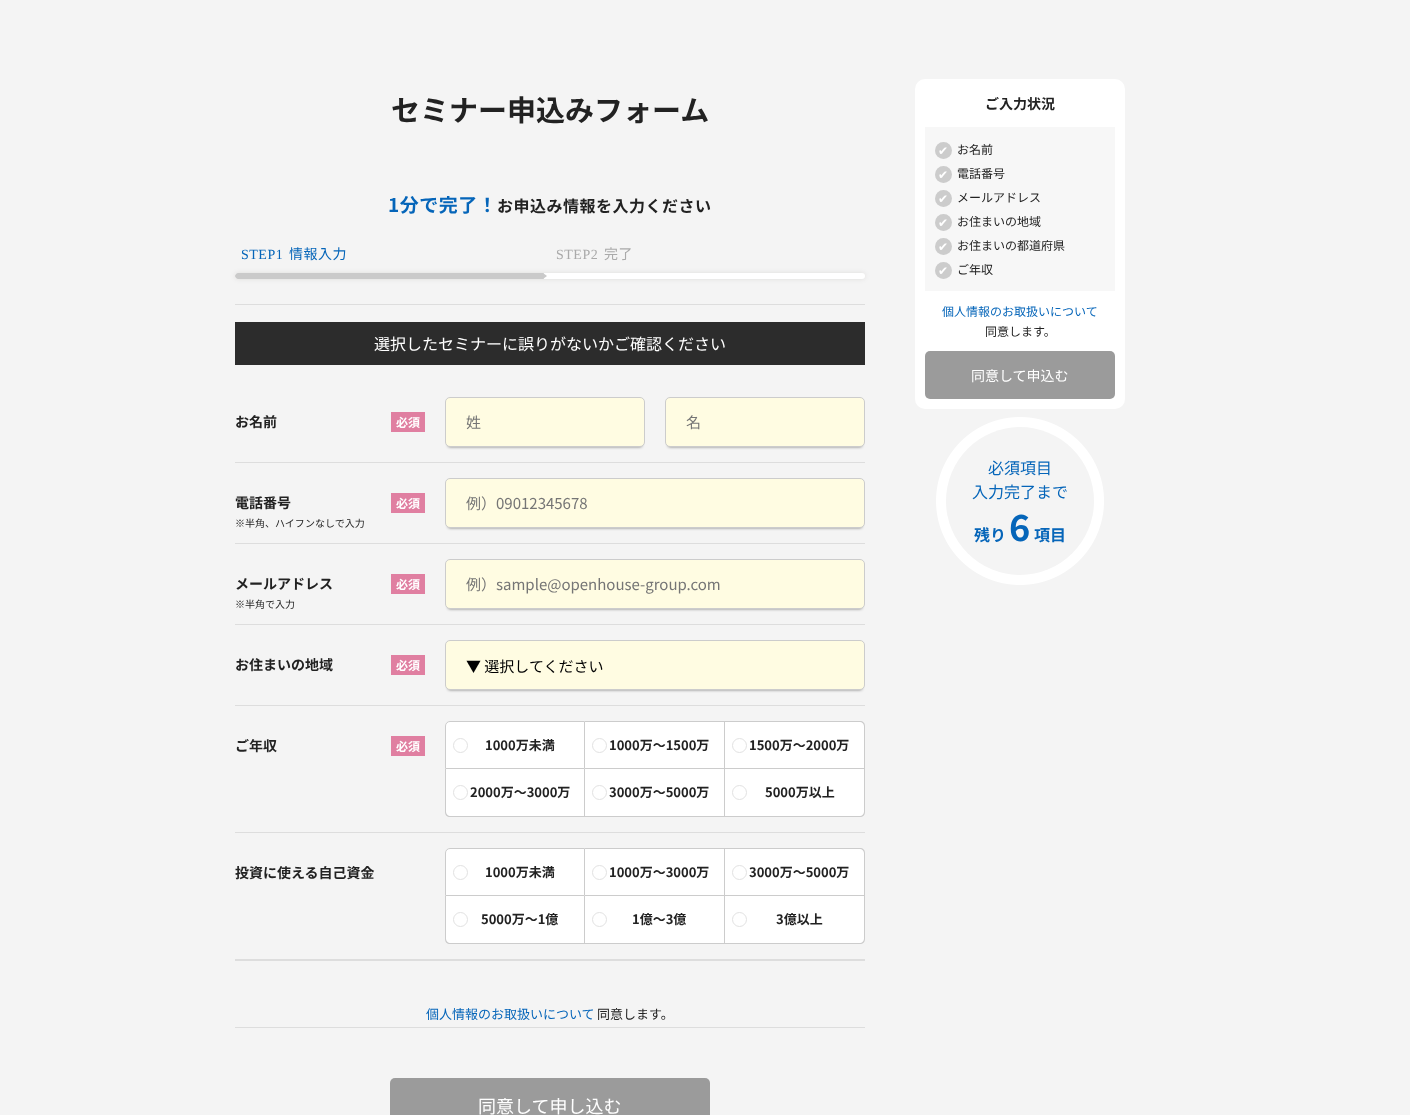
<svg xmlns="http://www.w3.org/2000/svg" width="1410" height="1115">
<rect width="100%" height="100%" fill="#f4f4f4"/>
<text x="391" y="121" style="font-family:Noto Sans JP;font-size:29px;font-weight:bold;fill:#222">セミナー申込みフォーム</text>
<rect x="235" y="304" width="630" height="1" fill="#ddd"/>
<text x="388" y="212" style="font-family:Noto Sans JP;font-size:19px;font-weight:bold;letter-spacing:0.5px;fill:#0565b9">1分で完了！</text>
<text x="497" y="212" style="font-family:Noto Sans JP;font-size:16px;font-weight:bold;letter-spacing:0.5px;fill:#222">お申込み情報を入力ください</text>
<text x="241" y="259" style="font-family:Liberation Serif;font-size:14px;letter-spacing:0.5px;fill:#0565b9">STEP1</text>
<text x="289" y="259" style="font-family:Noto Sans JP;font-size:14px;letter-spacing:0.5px;fill:#0565b9">情報入力</text>
<text x="556" y="259" style="font-family:Liberation Serif;font-size:14px;letter-spacing:0.5px;fill:#aaa">STEP2</text>
<text x="604" y="259" style="font-family:Noto Sans JP;font-size:14px;letter-spacing:0.5px;fill:#aaa">完了</text>
<rect x="235" y="273" width="630" height="6" rx="3" fill="#1e120d1a" filter="blur(2.5px)"/>
<rect x="235" y="273" width="630" height="6" rx="3" fill="#fff"/>
<path d="M238 273h306v6h-306c-1.5 0-3-1.5-3-3c0-1.5 1.5-3 3-3z" fill="#cacaca"/>
<path d="M543 273h4v3zm4 6h-4l4-3z" fill="#fff"/>
<path d="M543 279v-6l4 3z" fill="#cacaca"/>
<rect x="235" y="322" width="630" height="43" fill="#2c2c2c"/>
<text x="374" y="350" style="font-family:Noto Sans JP;font-size:16px;fill:#fff">選択したセミナーに誤りがないかご確認ください</text>
<text x="235" y="427" style="font-family:Noto Sans JP;font-size:14px;font-weight:bold;fill:#222">お名前</text>
<rect x="391" y="412" width="34" height="20" fill="#e07fa1"/>
<text x="396" y="427" style="font-family:Noto Sans JP;font-size:12px;font-weight:bold;fill:#fff">必須</text>
<rect x="448" y="403" width="194" height="44" rx="2" fill="#00000080" filter="blur(1.5px)"/>
<rect x="445.5" y="397.5" width="199" height="49" rx="4.5" fill="#fffce2" stroke="#ccc"/>
<text x="466" y="428" style="font-family:Noto Sans JP;font-size:15px;fill:#757575">姓</text>
<rect x="668" y="403" width="194" height="44" rx="2" fill="#00000080" filter="blur(1.5px)"/>
<rect x="665.5" y="397.5" width="199" height="49" rx="4.5" fill="#fffce2" stroke="#ccc"/>
<text x="686" y="428" style="font-family:Noto Sans JP;font-size:15px;fill:#757575">名</text>
<rect x="235" y="462" width="630" height="1" fill="#ddd"/>
<rect x="235" y="543" width="630" height="1" fill="#ddd"/>
<text x="235" y="508" style="font-family:Noto Sans JP;font-size:14px;font-weight:bold;fill:#222">電話番号</text>
<rect x="391" y="493" width="34" height="20" fill="#e07fa1"/>
<text x="396" y="508" style="font-family:Noto Sans JP;font-size:12px;font-weight:bold;fill:#fff">必須</text>
<rect x="448" y="484" width="414" height="44" rx="2" fill="#00000080" filter="blur(1.5px)"/>
<rect x="445.5" y="478.5" width="419" height="49" rx="4.5" fill="#fffce2" stroke="#ccc"/>
<text x="466" y="509" style="font-family:Noto Sans JP;font-size:15px;fill:#757575">例）09012345678</text>
<text x="235" y="527" style="font-family:Noto Sans JP;font-size:10px;fill:#222">※半角、ハイフンなしで入力</text>
<rect x="235" y="624" width="630" height="1" fill="#ddd"/>
<text x="235" y="589" style="font-family:Noto Sans JP;font-size:14px;font-weight:bold;fill:#222">メールアドレス</text>
<rect x="391" y="574" width="34" height="20" fill="#e07fa1"/>
<text x="396" y="589" style="font-family:Noto Sans JP;font-size:12px;font-weight:bold;fill:#fff">必須</text>
<rect x="448" y="565" width="414" height="44" rx="2" fill="#00000080" filter="blur(1.5px)"/>
<rect x="445.5" y="559.5" width="419" height="49" rx="4.5" fill="#fffce2" stroke="#ccc"/>
<text x="466" y="590" style="font-family:Noto Sans JP;font-size:15px;fill:#757575">例）sample@openhouse-group.com</text>
<text x="235" y="608" style="font-family:Noto Sans JP;font-size:10px;fill:#222">※半角で入力</text>
<rect x="235" y="705" width="630" height="1" fill="#ddd"/>
<text x="235" y="670" style="font-family:Noto Sans JP;font-size:14px;font-weight:bold;fill:#222">お住まいの地域</text>
<rect x="391" y="655" width="34" height="20" fill="#e07fa1"/>
<text x="396" y="670" style="font-family:Noto Sans JP;font-size:12px;font-weight:bold;fill:#fff">必須</text>
<rect x="448" y="646" width="414" height="44" rx="2" fill="#00000080" filter="blur(1.5px)"/>
<rect x="445.5" y="640.5" width="419" height="49" rx="4.5" fill="#fffce2" stroke="#ccc"/>
<text x="466" y="672" style="font-family:Noto Sans JP;font-size:15px;fill:#000">▼ 選択してください</text>
<rect x="235" y="832" width="630" height="1" fill="#ddd"/>
<text x="235" y="751" style="font-family:Noto Sans JP;font-size:14px;font-weight:bold;fill:#222">ご年収</text>
<rect x="391" y="736" width="34" height="20" fill="#e07fa1"/>
<text x="396" y="751" style="font-family:Noto Sans JP;font-size:12px;font-weight:bold;fill:#fff">必須</text>
<path d="M450 721.5h134.5v47h-139v-42.5c0-2.5 2-4.5 4.5-4.5z" fill="#fff" stroke="#ccc"/>
<circle cx="460.5" cy="745.5" r="7" fill="none" stroke="#e2e2e2"/>
<text x="485" y="750" style="font-family:Noto Sans JP;font-size:13px;font-weight:bold;fill:#222">1000万未満</text>
<rect x="585" y="722" width="139" height="46" fill="#fff"/>
<rect x="585" y="721" width="140" height="1" fill="#ccc"/>
<rect x="724" y="721" width="1" height="96" fill="#ccc"/>
<rect x="585" y="768" width="140" height="1" fill="#ccc"/>
<circle cx="599.5" cy="745.5" r="7" fill="none" stroke="#e2e2e2"/>
<text x="609" y="750" style="font-family:Noto Sans JP;font-size:13px;font-weight:bold;fill:#222">1000万〜1500万</text>
<path d="M725 722h135c2 0 4 2 4 4v42h-139z" fill="#fff"/>
<path d="M725 721h135c3 0 5 2 5 5v43h-140zm0 1h135c2 0 4 2 4 4v42h-139z" fill="#ccc" fill-rule="evenodd"/>
<circle cx="739.5" cy="745.5" r="7" fill="none" stroke="#e2e2e2"/>
<text x="749" y="750" style="font-family:Noto Sans JP;font-size:13px;font-weight:bold;fill:#222">1500万〜2000万</text>
<path d="M446 769h138v47h-134c-2 0-4-2-4-4z" fill="#fff"/>
<path d="M445 769h140v48h-135c-3 0-5-2-5-5zm1 0h138v47h-134c-2 0-4-2-4-4z" fill="#ccc" fill-rule="evenodd"/>
<circle cx="460.5" cy="792.5" r="7" fill="none" stroke="#e2e2e2"/>
<text x="470" y="797" style="font-family:Noto Sans JP;font-size:13px;font-weight:bold;fill:#222">2000万〜3000万</text>
<rect x="585" y="769" width="139" height="47" fill="#fff"/>
<rect x="585" y="816" width="140" height="1" fill="#ccc"/>
<circle cx="599.5" cy="792.5" r="7" fill="none" stroke="#e2e2e2"/>
<text x="609" y="797" style="font-family:Noto Sans JP;font-size:13px;font-weight:bold;fill:#222">3000万〜5000万</text>
<path d="M725 769h139v43c0 2-2 4-4 4h-135z" fill="#fff"/>
<path d="M725 769h140v43c0 3-2 5-5 5h-135zm0 0h139v43c0 2-2 4-4 4h-135z" fill="#ccc" fill-rule="evenodd"/>
<circle cx="739.5" cy="792.5" r="7" fill="none" stroke="#e2e2e2"/>
<text x="765" y="797" style="font-family:Noto Sans JP;font-size:13px;font-weight:bold;fill:#222">5000万以上</text>
<text x="235" y="878" style="font-family:Noto Sans JP;font-size:14px;font-weight:bold;fill:#222">投資に使える自己資金</text>
<path d="M450 848.5h134.5v47h-139v-42.5c0-2.5 2-4.5 4.5-4.5z" fill="#fff" stroke="#ccc"/>
<circle cx="460.5" cy="872.5" r="7" fill="none" stroke="#e2e2e2"/>
<text x="485" y="877" style="font-family:Noto Sans JP;font-size:13px;font-weight:bold;fill:#222">1000万未満</text>
<rect x="585" y="849" width="139" height="46" fill="#fff"/>
<rect x="585" y="848" width="140" height="1" fill="#ccc"/>
<rect x="724" y="848" width="1" height="96" fill="#ccc"/>
<rect x="585" y="895" width="140" height="1" fill="#ccc"/>
<circle cx="599.5" cy="872.5" r="7" fill="none" stroke="#e2e2e2"/>
<text x="609" y="877" style="font-family:Noto Sans JP;font-size:13px;font-weight:bold;fill:#222">1000万～3000万</text>
<path d="M725 849h135c2 0 4 2 4 4v42h-139z" fill="#fff"/>
<path d="M725 848h135c3 0 5 2 5 5v43h-140zm0 1h135c2 0 4 2 4 4v42h-139z" fill="#ccc" fill-rule="evenodd"/>
<circle cx="739.5" cy="872.5" r="7" fill="none" stroke="#e2e2e2"/>
<text x="749" y="877" style="font-family:Noto Sans JP;font-size:13px;font-weight:bold;fill:#222">3000万～5000万</text>
<path d="M446 896h138v47h-134c-2 0-4-2-4-4z" fill="#fff"/>
<path d="M445 896h140v48h-135c-3 0-5-2-5-5zm1 0h138v47h-134c-2 0-4-2-4-4z" fill="#ccc" fill-rule="evenodd"/>
<circle cx="460.5" cy="919.5" r="7" fill="none" stroke="#e2e2e2"/>
<text x="481" y="924" style="font-family:Noto Sans JP;font-size:13px;font-weight:bold;fill:#222">5000万～1億</text>
<rect x="585" y="896" width="139" height="47" fill="#fff"/>
<rect x="585" y="943" width="140" height="1" fill="#ccc"/>
<circle cx="599.5" cy="919.5" r="7" fill="none" stroke="#e2e2e2"/>
<text x="632" y="924" style="font-family:Noto Sans JP;font-size:13px;font-weight:bold;fill:#222">1億～3億</text>
<path d="M725 896h139v43c0 2-2 4-4 4h-135z" fill="#fff"/>
<path d="M725 896h140v43c0 3-2 5-5 5h-135zm0 0h139v43c0 2-2 4-4 4h-135z" fill="#ccc" fill-rule="evenodd"/>
<circle cx="739.5" cy="919.5" r="7" fill="none" stroke="#e2e2e2"/>
<text x="776" y="924" style="font-family:Noto Sans JP;font-size:13px;font-weight:bold;fill:#222">3億以上</text>
<rect x="235" y="959" width="630" height="2" fill="#ddd"/>
<text x="426" y="1019" style="font-family:Noto Sans JP;font-size:13px;fill:#0565b9">個人情報のお取扱いについて</text>
<text x="597" y="1019" style="font-family:Noto Sans JP;font-size:13px;fill:#222">同意します。</text>
<rect x="235" y="1027" width="630" height="1" fill="#ddd"/>
<rect x="390" y="1078" width="320" height="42" rx="5" fill="#9b9b9b"/>
<text x="478" y="1113" style="font-family:Noto Sans JP;font-size:18px;fill:#fff">同意して申し込む</text>
<rect x="915" y="79" width="210" height="330" rx="10" fill="#fff"/>
<text x="985" y="109" style="font-family:Noto Sans JP;font-size:14px;font-weight:bold;fill:#222">ご入力状況</text>
<rect x="925" y="127" width="190" height="164" fill="#f7f7f7"/>
<circle cx="943.5" cy="150.5" r="8.5" fill="#ccc"/>
<text x="938" y="155" style="font-family:DejaVu Sans;font-size:12px;fill:#fff">✔</text>
<text x="957" y="154" style="font-family:Noto Sans JP;font-size:12px;fill:#222">お名前</text>
<circle cx="943.5" cy="174.5" r="8.5" fill="#ccc"/>
<text x="938" y="179" style="font-family:DejaVu Sans;font-size:12px;fill:#fff">✔</text>
<text x="957" y="178" style="font-family:Noto Sans JP;font-size:12px;fill:#222">電話番号</text>
<circle cx="943.5" cy="198.5" r="8.5" fill="#ccc"/>
<text x="938" y="203" style="font-family:DejaVu Sans;font-size:12px;fill:#fff">✔</text>
<text x="957" y="202" style="font-family:Noto Sans JP;font-size:12px;fill:#222">メールアドレス</text>
<circle cx="943.5" cy="222.5" r="8.5" fill="#ccc"/>
<text x="938" y="227" style="font-family:DejaVu Sans;font-size:12px;fill:#fff">✔</text>
<text x="957" y="226" style="font-family:Noto Sans JP;font-size:12px;fill:#222">お住まいの地域</text>
<circle cx="943.5" cy="246.5" r="8.5" fill="#ccc"/>
<text x="938" y="251" style="font-family:DejaVu Sans;font-size:12px;fill:#fff">✔</text>
<text x="957" y="250" style="font-family:Noto Sans JP;font-size:12px;fill:#222">お住まいの都道府県</text>
<circle cx="943.5" cy="270.5" r="8.5" fill="#ccc"/>
<text x="938" y="275" style="font-family:DejaVu Sans;font-size:12px;fill:#fff">✔</text>
<text x="957" y="274" style="font-family:Noto Sans JP;font-size:12px;fill:#222">ご年収</text>
<text x="942" y="316" style="font-family:Noto Sans JP;font-size:12px;fill:#0565b9">個人情報のお取扱いについて</text>
<text x="985" y="336" style="font-family:Noto Sans JP;font-size:12px;fill:#222">同意します。</text>
<rect x="925" y="351" width="190" height="48" rx="5" fill="#9b9b9b"/>
<text x="971" y="381" style="font-family:Noto Sans JP;font-size:14px;fill:#fff">同意して申込む</text>
<circle cx="1020" cy="501" r="82" fill="#fff"/>
<circle cx="1020" cy="501" r="74" fill="#f4f4f4"/>
<text x="988" y="474" style="font-family:Noto Sans JP;font-size:16px;fill:#0565b9">必須項目</text>
<text x="972" y="498" style="font-family:Noto Sans JP;font-size:16px;fill:#0565b9">入力完了まで</text>
<text x="974" y="541" style="font-family:Noto Sans JP;font-size:16px;font-weight:bold;fill:#0565b9">残り</text>
<text x="1009" y="541" style="font-family:Noto Sans JP;font-size:36px;font-weight:bold;fill:#0565b9">6</text>
<text x="1034" y="541" style="font-family:Noto Sans JP;font-size:16px;font-weight:bold;fill:#0565b9">項目</text>
<image x="936" y="417" width="168" height="168" href="media/1.png"/>
</svg>
